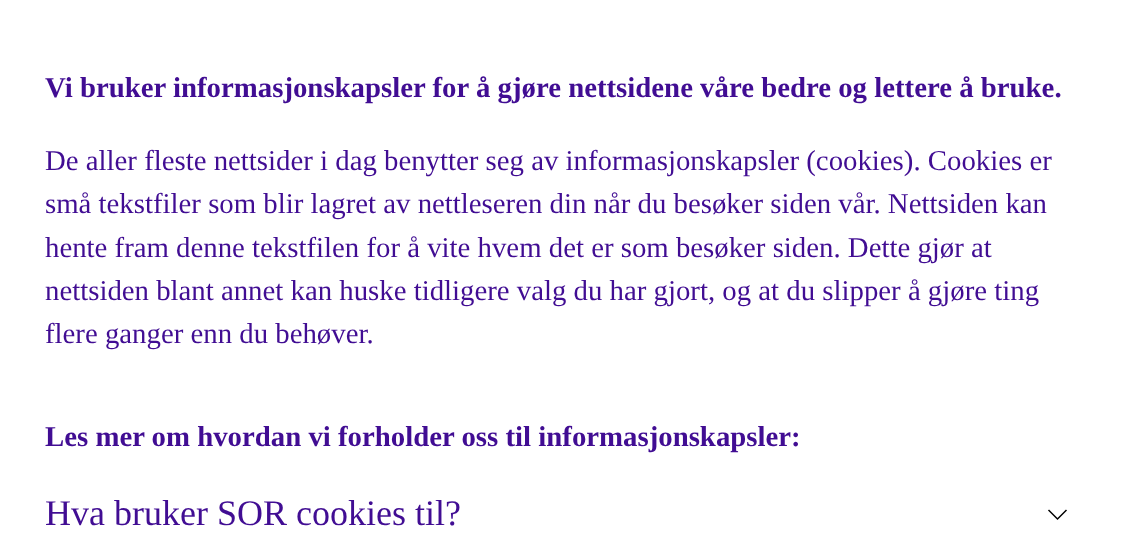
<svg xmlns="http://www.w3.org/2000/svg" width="1127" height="539">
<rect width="100%" height="100%" fill="#fff"/>
<text x="45" y="97" style="font-family:Liberation Serif;font-size:28.8px;font-weight:bold;fill:#410d93">Vi bruker informasjonskapsler for å gjøre nettsidene våre bedre og lettere å bruke.</text>
<text x="45" y="170" style="font-family:Liberation Serif;font-size:28.8px;fill:#410d93">De aller fleste nettsider i dag benytter seg av informasjonskapsler (cookies). Cookies er</text>
<text x="45" y="213" style="font-family:Liberation Serif;font-size:28.8px;fill:#410d93">små tekstfiler som blir lagret av nettleseren din når du besøker siden vår. Nettsiden kan</text>
<text x="45" y="257" style="font-family:Liberation Serif;font-size:28.8px;fill:#410d93">hente fram denne tekstfilen for å vite hvem det er som besøker siden. Dette gjør at</text>
<text x="45" y="300" style="font-family:Liberation Serif;font-size:28.8px;fill:#410d93">nettsiden blant annet kan huske tidligere valg du har gjort, og at du slipper å gjøre ting</text>
<text x="45" y="343" style="font-family:Liberation Serif;font-size:28.8px;fill:#410d93">flere ganger enn du behøver.</text>
<text x="45" y="446" style="font-family:Liberation Serif;font-size:28.8px;font-weight:bold;fill:#410d93">Les mer om hvordan vi forholder oss til informasjonskapsler:</text>
<text x="45" y="525" style="font-family:Liberation Serif;font-size:36px;fill:#410d93">Hva bruker SOR cookies til?</text>
<path d="M1066.5 510l-9 9l-9-9" fill="none" stroke="#000" stroke-width="1.5"/>
</svg>
